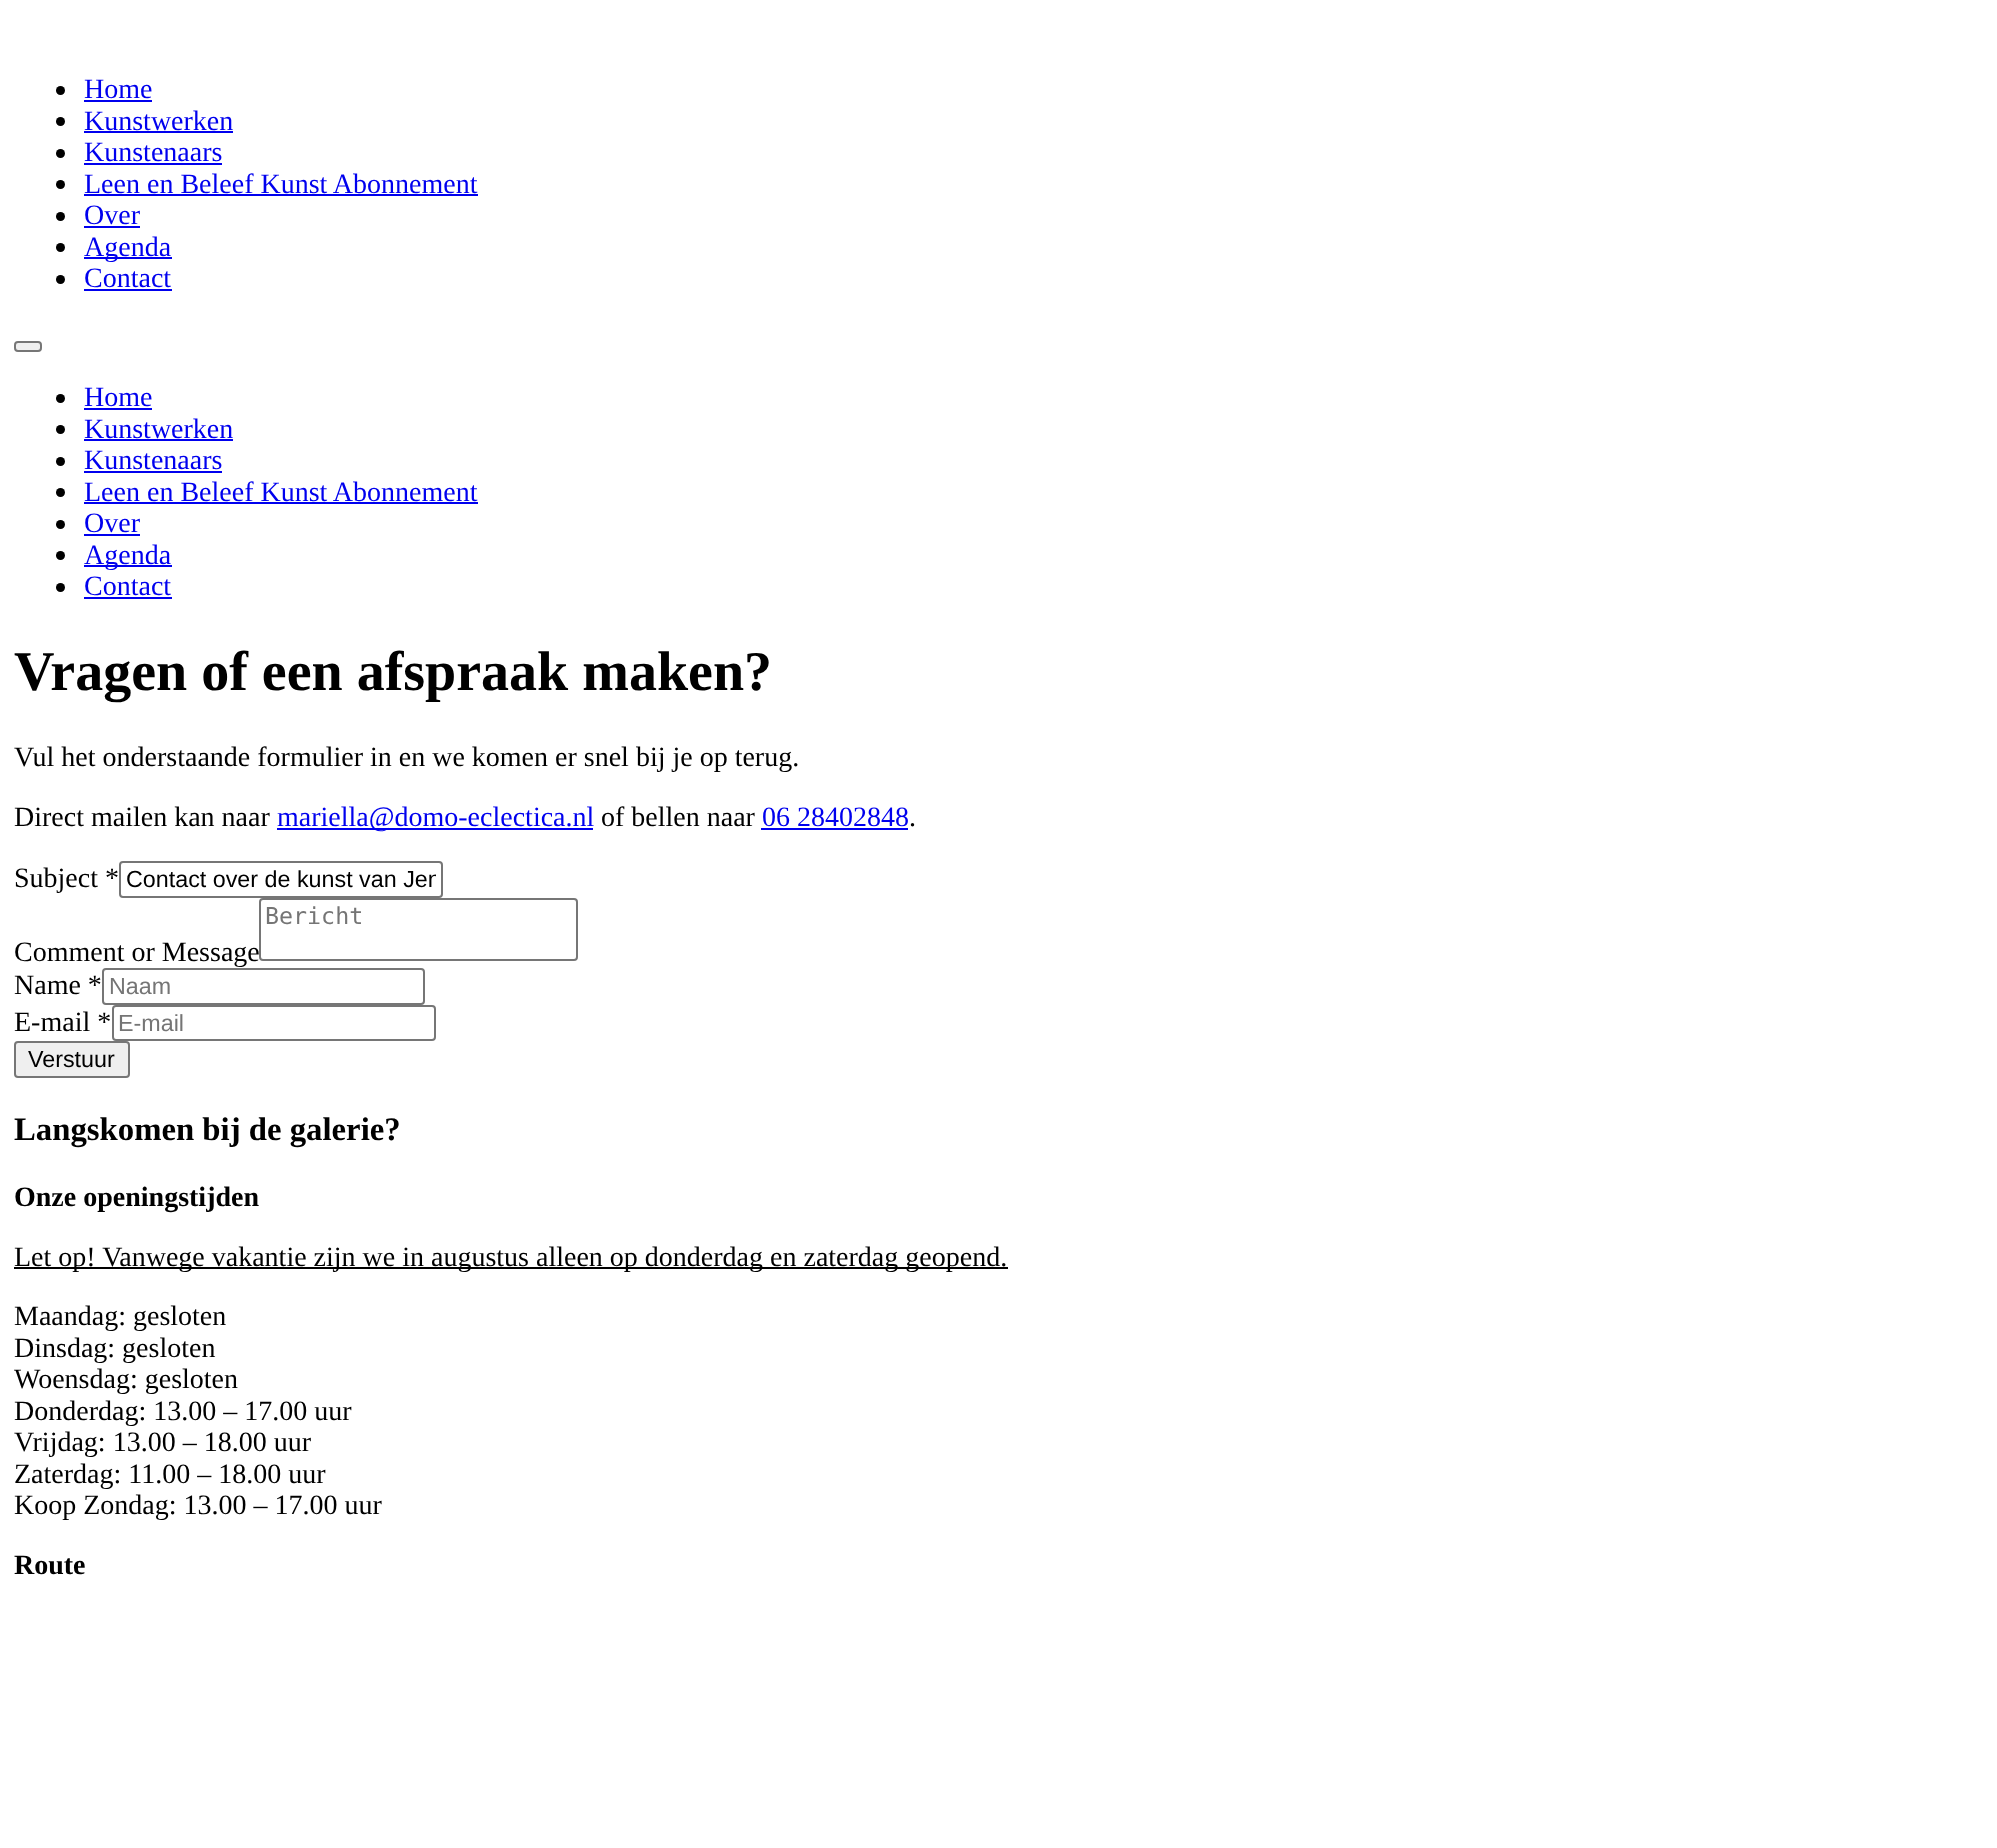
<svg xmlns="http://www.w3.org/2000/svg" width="1997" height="1848">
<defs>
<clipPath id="clip1"><rect x="126" y="866" width="310" height="27"/></clipPath>
</defs>
<rect width="100%" height="100%" fill="#fff"/>
<circle cx="60.5" cy="90.5" r="4.5" fill="#000"/>
<text x="84" y="98" style="font-family:Liberation Serif;font-size:28px;fill:#00e">Home</text>
<rect x="84" y="100" width="68" height="2" fill="#00e"/>
<circle cx="60.5" cy="121.5" r="4.5" fill="#000"/>
<text x="84" y="130" style="font-family:Liberation Serif;font-size:28px;fill:#00e">Kunstwerken</text>
<rect x="84" y="131" width="149" height="2" fill="#00e"/>
<circle cx="60.5" cy="153.5" r="4.5" fill="#000"/>
<text x="84" y="161" style="font-family:Liberation Serif;font-size:28px;fill:#00e">Kunstenaars</text>
<rect x="84" y="163" width="138" height="2" fill="#00e"/>
<circle cx="60.5" cy="184.5" r="4.5" fill="#000"/>
<text x="84" y="193" style="font-family:Liberation Serif;font-size:28px;fill:#00e">Leen en Beleef Kunst Abonnement</text>
<rect x="84" y="194" width="394" height="2" fill="#00e"/>
<circle cx="60.5" cy="216.5" r="4.5" fill="#000"/>
<text x="84" y="224" style="font-family:Liberation Serif;font-size:28px;fill:#00e">Over</text>
<rect x="84" y="226" width="56" height="2" fill="#00e"/>
<circle cx="60.5" cy="247.5" r="4.5" fill="#000"/>
<rect x="84" y="257" width="88" height="2" fill="#00e"/>
<text x="84" y="256" style="font-family:Liberation Serif;font-size:28px;fill:#00e">Agenda</text>
<circle cx="60.5" cy="279.5" r="4.5" fill="#000"/>
<text x="84" y="287" style="font-family:Liberation Serif;font-size:28px;fill:#00e">Contact</text>
<rect x="84" y="289" width="88" height="2" fill="#00e"/>
<rect x="15" y="342" width="26" height="9" rx="3" fill="#efefef" stroke="#767676" stroke-width="2"/>
<circle cx="60.5" cy="398.5" r="4.5" fill="#000"/>
<text x="84" y="406" style="font-family:Liberation Serif;font-size:28px;fill:#00e">Home</text>
<rect x="84" y="408" width="68" height="2" fill="#00e"/>
<circle cx="60.5" cy="429.5" r="4.5" fill="#000"/>
<text x="84" y="438" style="font-family:Liberation Serif;font-size:28px;fill:#00e">Kunstwerken</text>
<rect x="84" y="439" width="149" height="2" fill="#00e"/>
<circle cx="60.5" cy="461.5" r="4.5" fill="#000"/>
<text x="84" y="469" style="font-family:Liberation Serif;font-size:28px;fill:#00e">Kunstenaars</text>
<rect x="84" y="471" width="138" height="2" fill="#00e"/>
<circle cx="60.5" cy="492.5" r="4.5" fill="#000"/>
<text x="84" y="501" style="font-family:Liberation Serif;font-size:28px;fill:#00e">Leen en Beleef Kunst Abonnement</text>
<rect x="84" y="502" width="394" height="2" fill="#00e"/>
<circle cx="60.5" cy="524.5" r="4.5" fill="#000"/>
<text x="84" y="532" style="font-family:Liberation Serif;font-size:28px;fill:#00e">Over</text>
<rect x="84" y="534" width="56" height="2" fill="#00e"/>
<circle cx="60.5" cy="555.5" r="4.5" fill="#000"/>
<rect x="84" y="565" width="88" height="2" fill="#00e"/>
<text x="84" y="564" style="font-family:Liberation Serif;font-size:28px;fill:#00e">Agenda</text>
<circle cx="60.5" cy="587.5" r="4.5" fill="#000"/>
<text x="84" y="595" style="font-family:Liberation Serif;font-size:28px;fill:#00e">Contact</text>
<rect x="84" y="597" width="88" height="2" fill="#00e"/>
<text x="14" y="690" style="font-family:Liberation Serif;font-size:56px;font-weight:bold;fill:#000">Vragen of een afspraak maken?</text>
<text x="14" y="766" style="font-family:Liberation Serif;font-size:28px;fill:#000">Vul het onderstaande formulier in en we komen er snel bij je op terug.</text>
<text x="14" y="826" style="font-family:Liberation Serif;font-size:28px;fill:#000">Direct mailen kan naar</text>
<rect x="277" y="828" width="316" height="2" fill="#00e"/>
<text x="277" y="826" style="font-family:Liberation Serif;font-size:28px;fill:#00e">mariella@domo-eclectica.nl</text>
<text x="601" y="826" style="font-family:Liberation Serif;font-size:28px;fill:#000">of bellen naar</text>
<text x="762" y="826" style="font-family:Liberation Serif;font-size:28px;fill:#00e">06 28402848</text>
<rect x="761" y="828" width="147" height="2" fill="#00e"/>
<text x="909" y="826" style="font-family:Liberation Serif;font-size:28px;fill:#000">.</text>
<text x="14" y="887" style="font-family:Liberation Serif;font-size:28px;fill:#000">Subject *</text>
<rect x="120" y="862" width="322" height="35" rx="3" fill="none" stroke="#767676" stroke-width="2"/>
<g clip-path="url(#clip1)">
<text x="126" y="887" style="font-family:Liberation Sans;font-size:23.3px;fill:#000">Contact over de kunst van Jen</text>
</g>
<rect x="260" y="899" width="317" height="61" rx="3" fill="none" stroke="#767676" stroke-width="2"/>
<text x="265" y="924" style="font-family:DejaVu Sans Mono;font-size:23.3px;fill:#757575">Bericht</text>
<text x="14" y="961" style="font-family:Liberation Serif;font-size:28px;fill:#000">Comment or Message</text>
<text x="14" y="994" style="font-family:Liberation Serif;font-size:28px;fill:#000">Name *</text>
<rect x="103" y="969" width="321" height="35" rx="3" fill="none" stroke="#767676" stroke-width="2"/>
<text x="109" y="994" style="font-family:Liberation Sans;font-size:23.3px;fill:#757575">Naam</text>
<text x="14" y="1031" style="font-family:Liberation Serif;font-size:28px;fill:#000">E-mail *</text>
<rect x="113" y="1006" width="322" height="34" rx="3" fill="none" stroke="#767676" stroke-width="2"/>
<text x="118" y="1031" style="font-family:Liberation Sans;font-size:23.3px;fill:#757575">E-mail</text>
<rect x="15" y="1042" width="114" height="35" rx="3" fill="#efefef" stroke="#767676" stroke-width="2"/>
<text x="28" y="1067" style="font-family:Liberation Sans;font-size:23.3px;fill:#000">Verstuur</text>
<text x="14" y="1140" style="font-family:Liberation Serif;font-size:32.75px;font-weight:bold;fill:#000">Langskomen bij de galerie?</text>
<text x="14" y="1206" style="font-family:Liberation Serif;font-size:28px;font-weight:bold;fill:#000">Onze openingstijden</text>
<rect x="14" y="1267" width="994" height="2" fill="#000"/>
<text x="14" y="1266" style="font-family:Liberation Serif;font-size:28px;fill:#000">Let op! Vanwege vakantie zijn we in augustus alleen op donderdag en zaterdag geopend.</text>
<text x="14" y="1325" style="font-family:Liberation Serif;font-size:28px;fill:#000">Maandag: gesloten</text>
<text x="14" y="1357" style="font-family:Liberation Serif;font-size:28px;fill:#000">Dinsdag: gesloten</text>
<text x="14" y="1388" style="font-family:Liberation Serif;font-size:28px;fill:#000">Woensdag: gesloten</text>
<text x="14" y="1420" style="font-family:Liberation Serif;font-size:28px;fill:#000">Donderdag: 13.00 – 17.00 uur</text>
<text x="14" y="1451" style="font-family:Liberation Serif;font-size:28px;fill:#000">Vrijdag: 13.00 – 18.00 uur</text>
<text x="14" y="1483" style="font-family:Liberation Serif;font-size:28px;fill:#000">Zaterdag: 11.00 – 18.00 uur</text>
<text x="14" y="1514" style="font-family:Liberation Serif;font-size:28px;fill:#000">Koop Zondag: 13.00 – 17.00 uur</text>
<text x="14" y="1574" style="font-family:Liberation Serif;font-size:28px;font-weight:bold;fill:#000">Route</text>
</svg>
